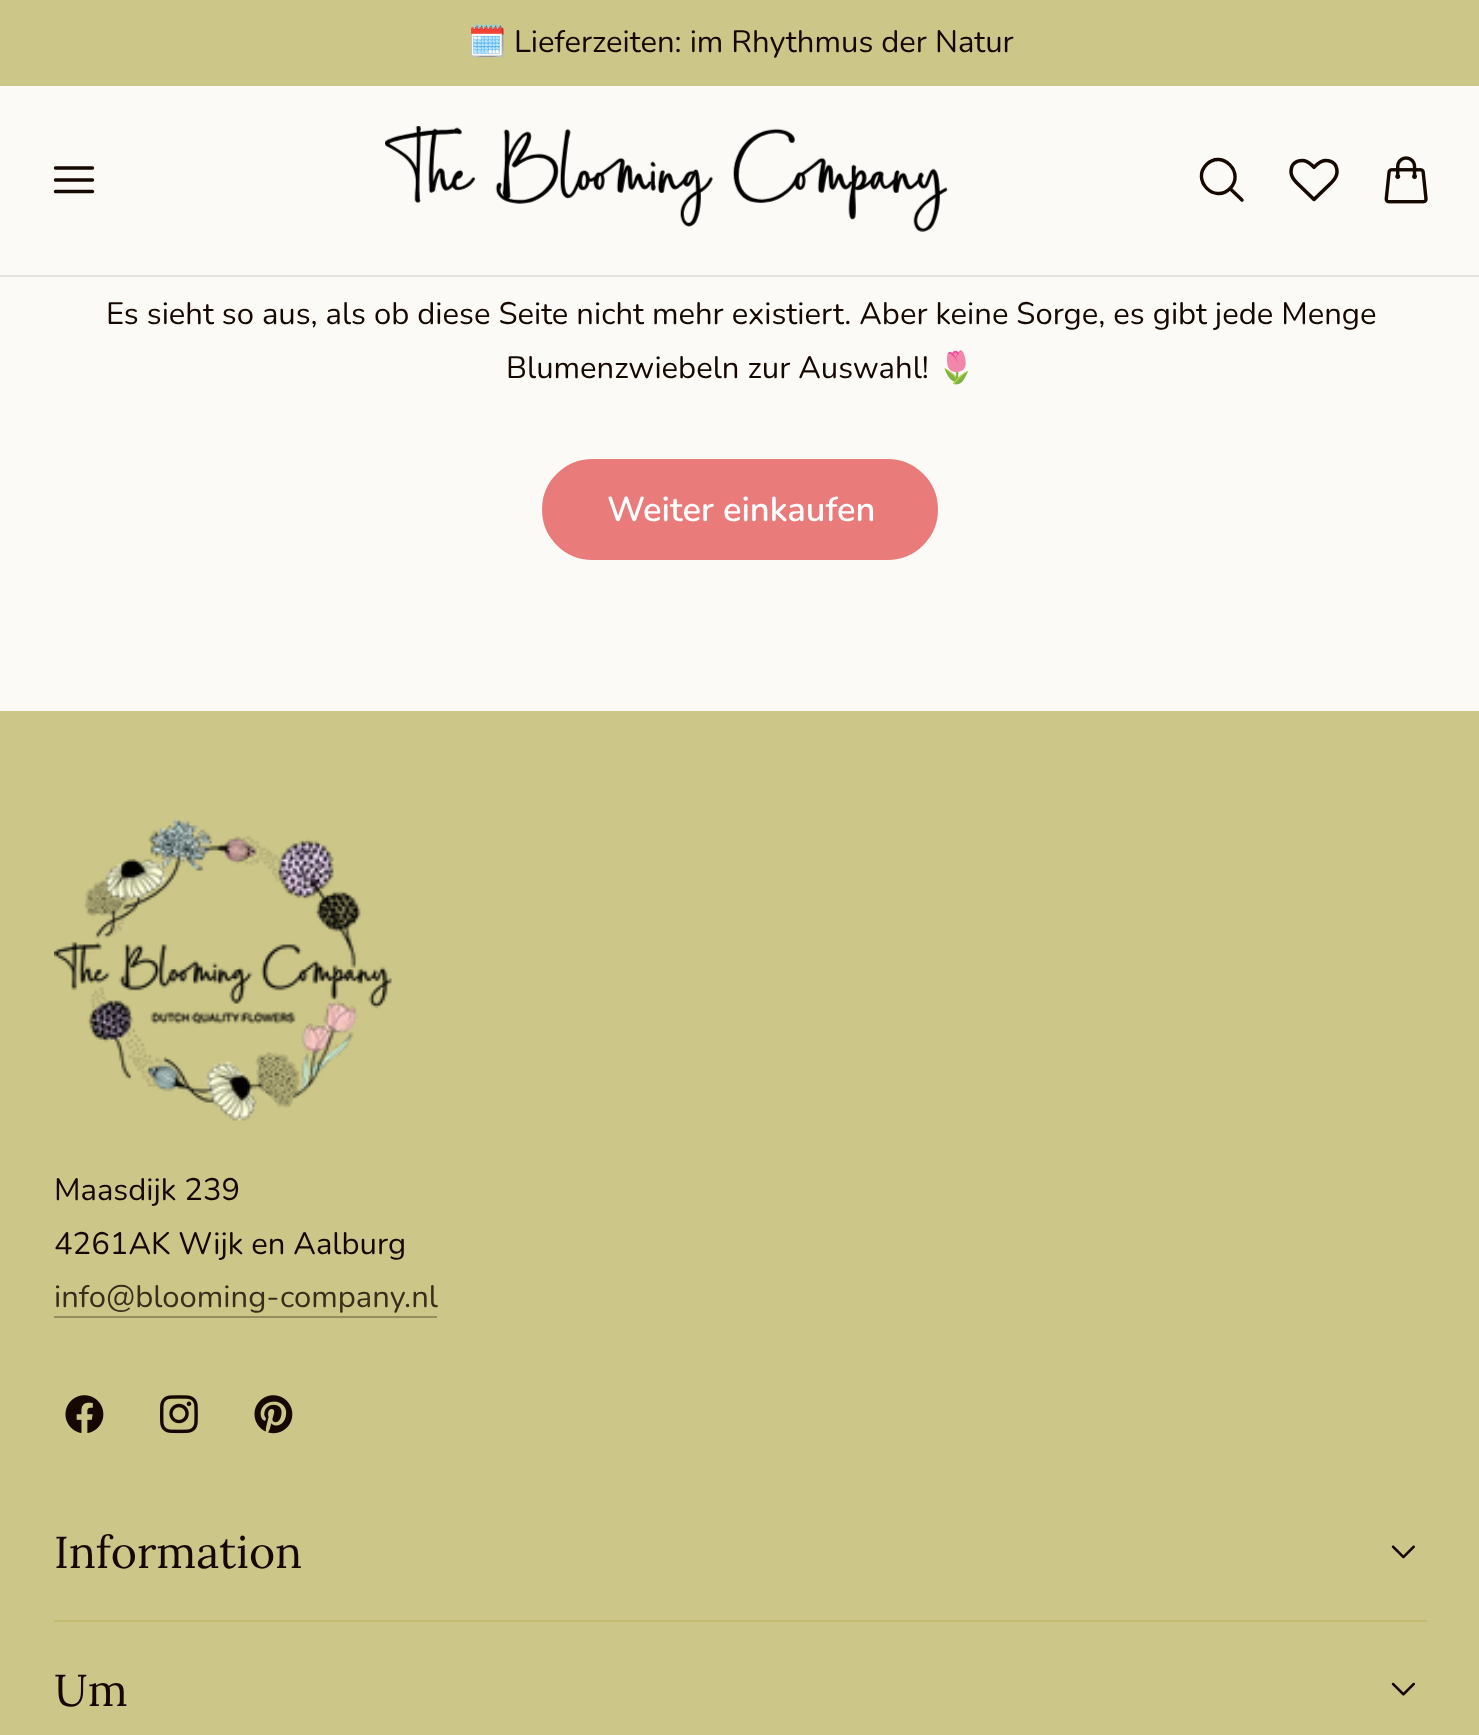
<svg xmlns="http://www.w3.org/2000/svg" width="1479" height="1735">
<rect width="100%" height="100%" fill="#fcfaf6"/>
<rect width="1479" height="86" fill="#ccc689"/>
<text x="468" y="52" style="font-family:Noto Color Emoji;font-size:31px;fill:#140800">🗓️</text>
<text x="514" y="52" style="font-family:Nunito;font-size:31px;fill:#140800">Lieferzeiten: im Rhythmus der Natur</text>
<rect y="275" width="1479" height="2" fill="#e5e2dd"/>
<path d="M55.5 168h37m-37 12h37m-37 11.5h37" fill="none" stroke="#140800" stroke-width="3.4" stroke-linecap="round" stroke-linejoin="round"/>
<image x="385" y="126" width="563" height="106" href="media/1.png"/>
<path d="M1242 200l-12-11.5m0 0c15.5-15.5-8-39.5-23.5-24c-15.5 15.5 8 39.5 23.5 24z" fill="none" stroke="#140800" stroke-width="3.4" stroke-linecap="round" stroke-linejoin="round"/>
<image x="1289" y="158" width="50" height="44" href="media/2.png"/>
<image x="1384" y="156" width="44" height="48" href="media/3.png"/>
<text x="106" y="324" style="font-family:Nunito;font-size:31px;fill:#140800">Es sieht so aus, als ob diese Seite nicht mehr existiert. Aber keine Sorge, es gibt jede Menge</text>
<text x="506" y="378" style="font-family:Nunito;font-size:31px;fill:#140800">Blumenzwiebeln zur Auswahl!</text>
<text x="937" y="378" style="font-family:Noto Color Emoji;font-size:31px;fill:#140800">🌷</text>
<rect x="543" y="460" width="394" height="99" rx="49.5" fill="#e97b7b" stroke="#e97b7b" stroke-width="2"/>
<text x="607" y="521" style="font-family:Nunito;font-size:34.5px;font-weight:600;fill:#fff">Weiter einkaufen</text>
<rect y="711" width="1479" height="1024" fill="#ccc689"/>
<image x="54" y="818" width="338" height="303" href="media/4.png"/>
<text x="54" y="1200" style="font-family:Nunito;font-size:31px;fill:#140800">Maasdijk 239</text>
<text x="54" y="1254" style="font-family:Nunito;font-size:31px;fill:#140800">4261AK Wijk en Aalburg</text>
<text x="54" y="1307" style="font-family:Nunito;font-size:31px;fill:#392e1b">info@blooming-company.nl</text>
<rect x="54" y="1316" width="383" height="2" fill="#958d60"/>
<image x="65" y="1395" width="39" height="38" href="media/5.png"/>
<image x="160" y="1395" width="38" height="39" href="media/6.png"/>
<image x="254" y="1395" width="39" height="39" href="media/7.png"/>
<rect x="54" y="1620" width="1373" height="2" fill="#c2bb70"/>
<text x="54" y="1568" style="font-family:Lora;font-size:44.75px;fill:#140800">Information</text>
<image x="1391" y="1545" width="24" height="14" href="media/8.png"/>
<text x="54" y="1706" style="font-family:Lora;font-size:44.75px;fill:#140800">Um</text>
<image x="1391" y="1682" width="24" height="14" href="media/9.png"/>
</svg>
